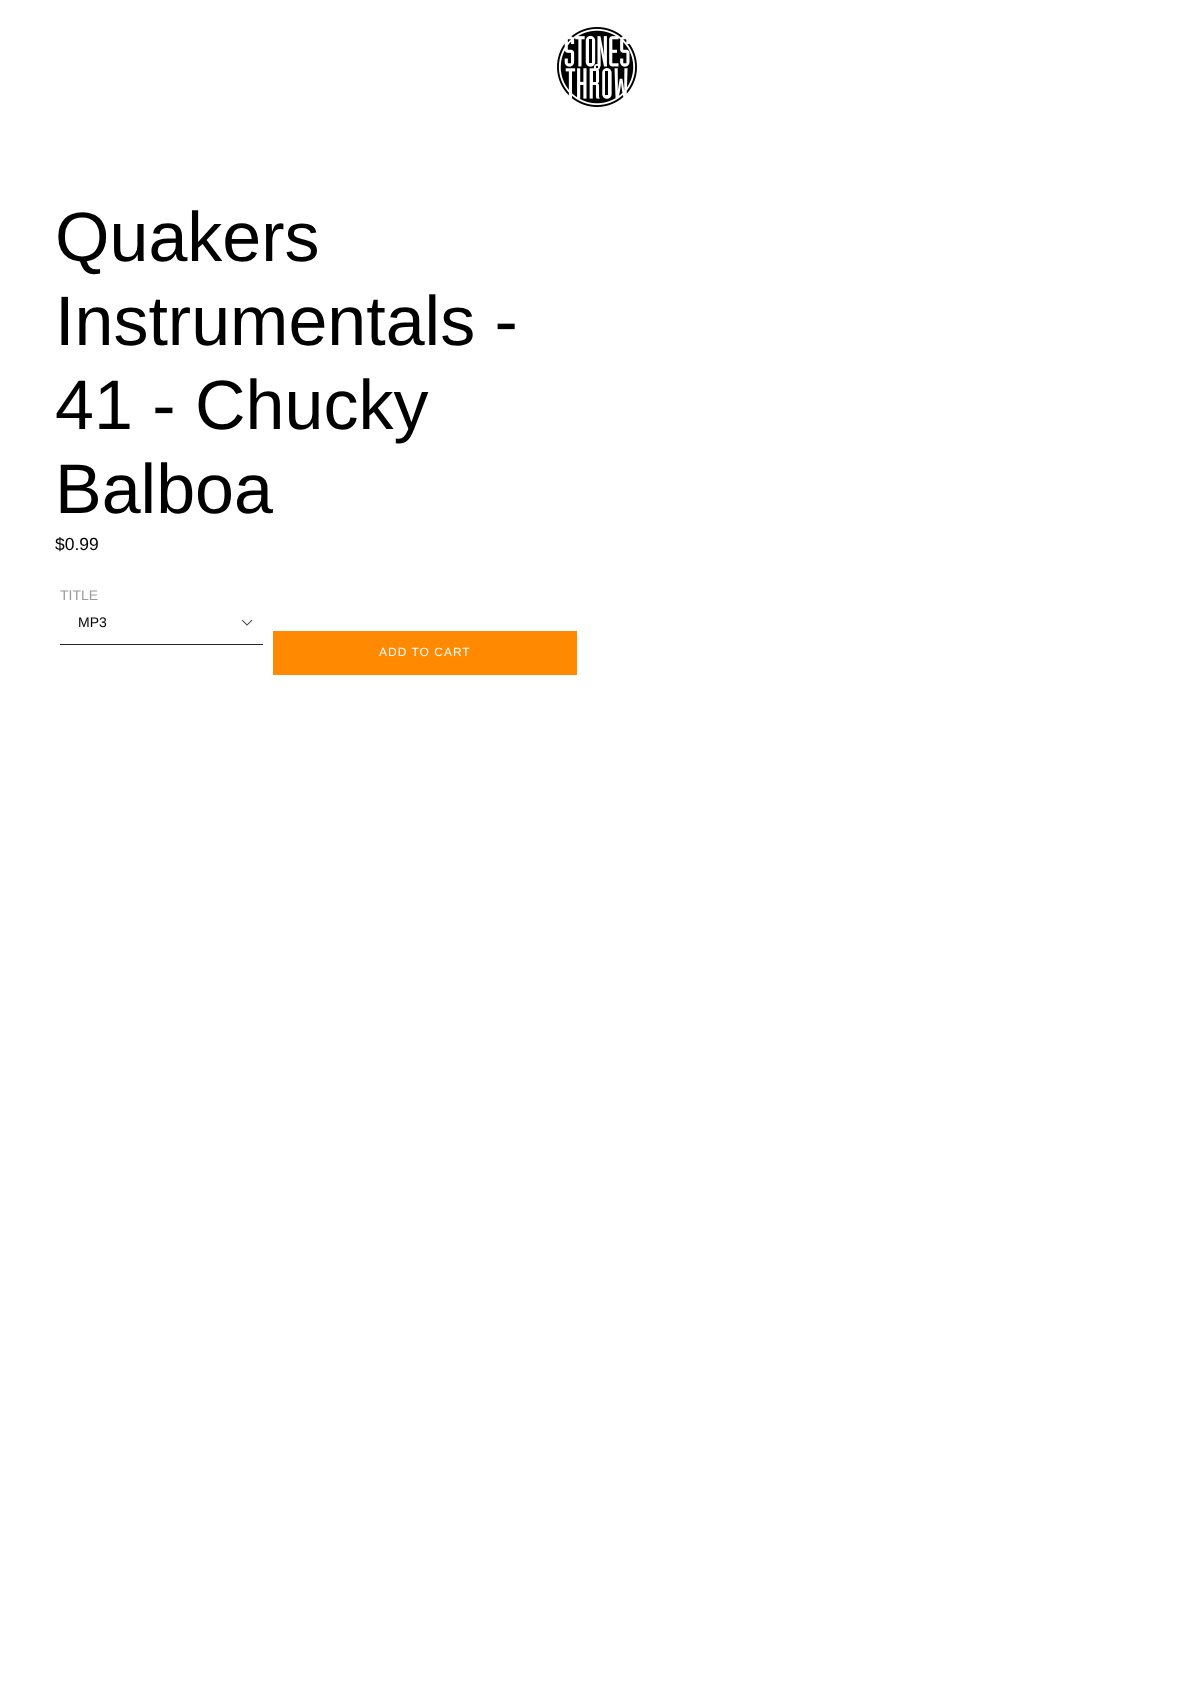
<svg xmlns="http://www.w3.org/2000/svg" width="1193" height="1681">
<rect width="100%" height="100%" fill="#fff"/>
<image x="557" y="27" width="80" height="80" href="media/1.png"/>
<text x="55" y="261" style="font-family:Liberation Sans;font-size:70px;fill:#000">Quakers</text>
<text x="55" y="345" style="font-family:Liberation Sans;font-size:70px;fill:#000">Instrumentals -</text>
<text x="55" y="429" style="font-family:Liberation Sans;font-size:70px;fill:#000">41 - Chucky</text>
<text x="55" y="513" style="font-family:Liberation Sans;font-size:70px;fill:#000">Balboa</text>
<text x="55" y="550" style="font-family:Liberation Sans;font-size:17.5px;fill:#000">$0.99</text>
<text x="60" y="600" style="font-family:Liberation Sans;font-size:14px;fill:#9b9b9b">TITLE</text>
<image x="241" y="619" width="12" height="7" href="media/2.png"/>
<rect x="60" y="644" width="203" height="1" fill="#262626"/>
<text x="78" y="627" style="font-family:Liberation Sans;font-size:14px;fill:#000">MP3</text>
<rect x="273" y="631" width="304" height="44" fill="#ff8900"/>
<text x="379" y="656" style="font-family:Liberation Sans;font-size:12px;letter-spacing:1px;fill:#fff">ADD TO CART</text>
</svg>
